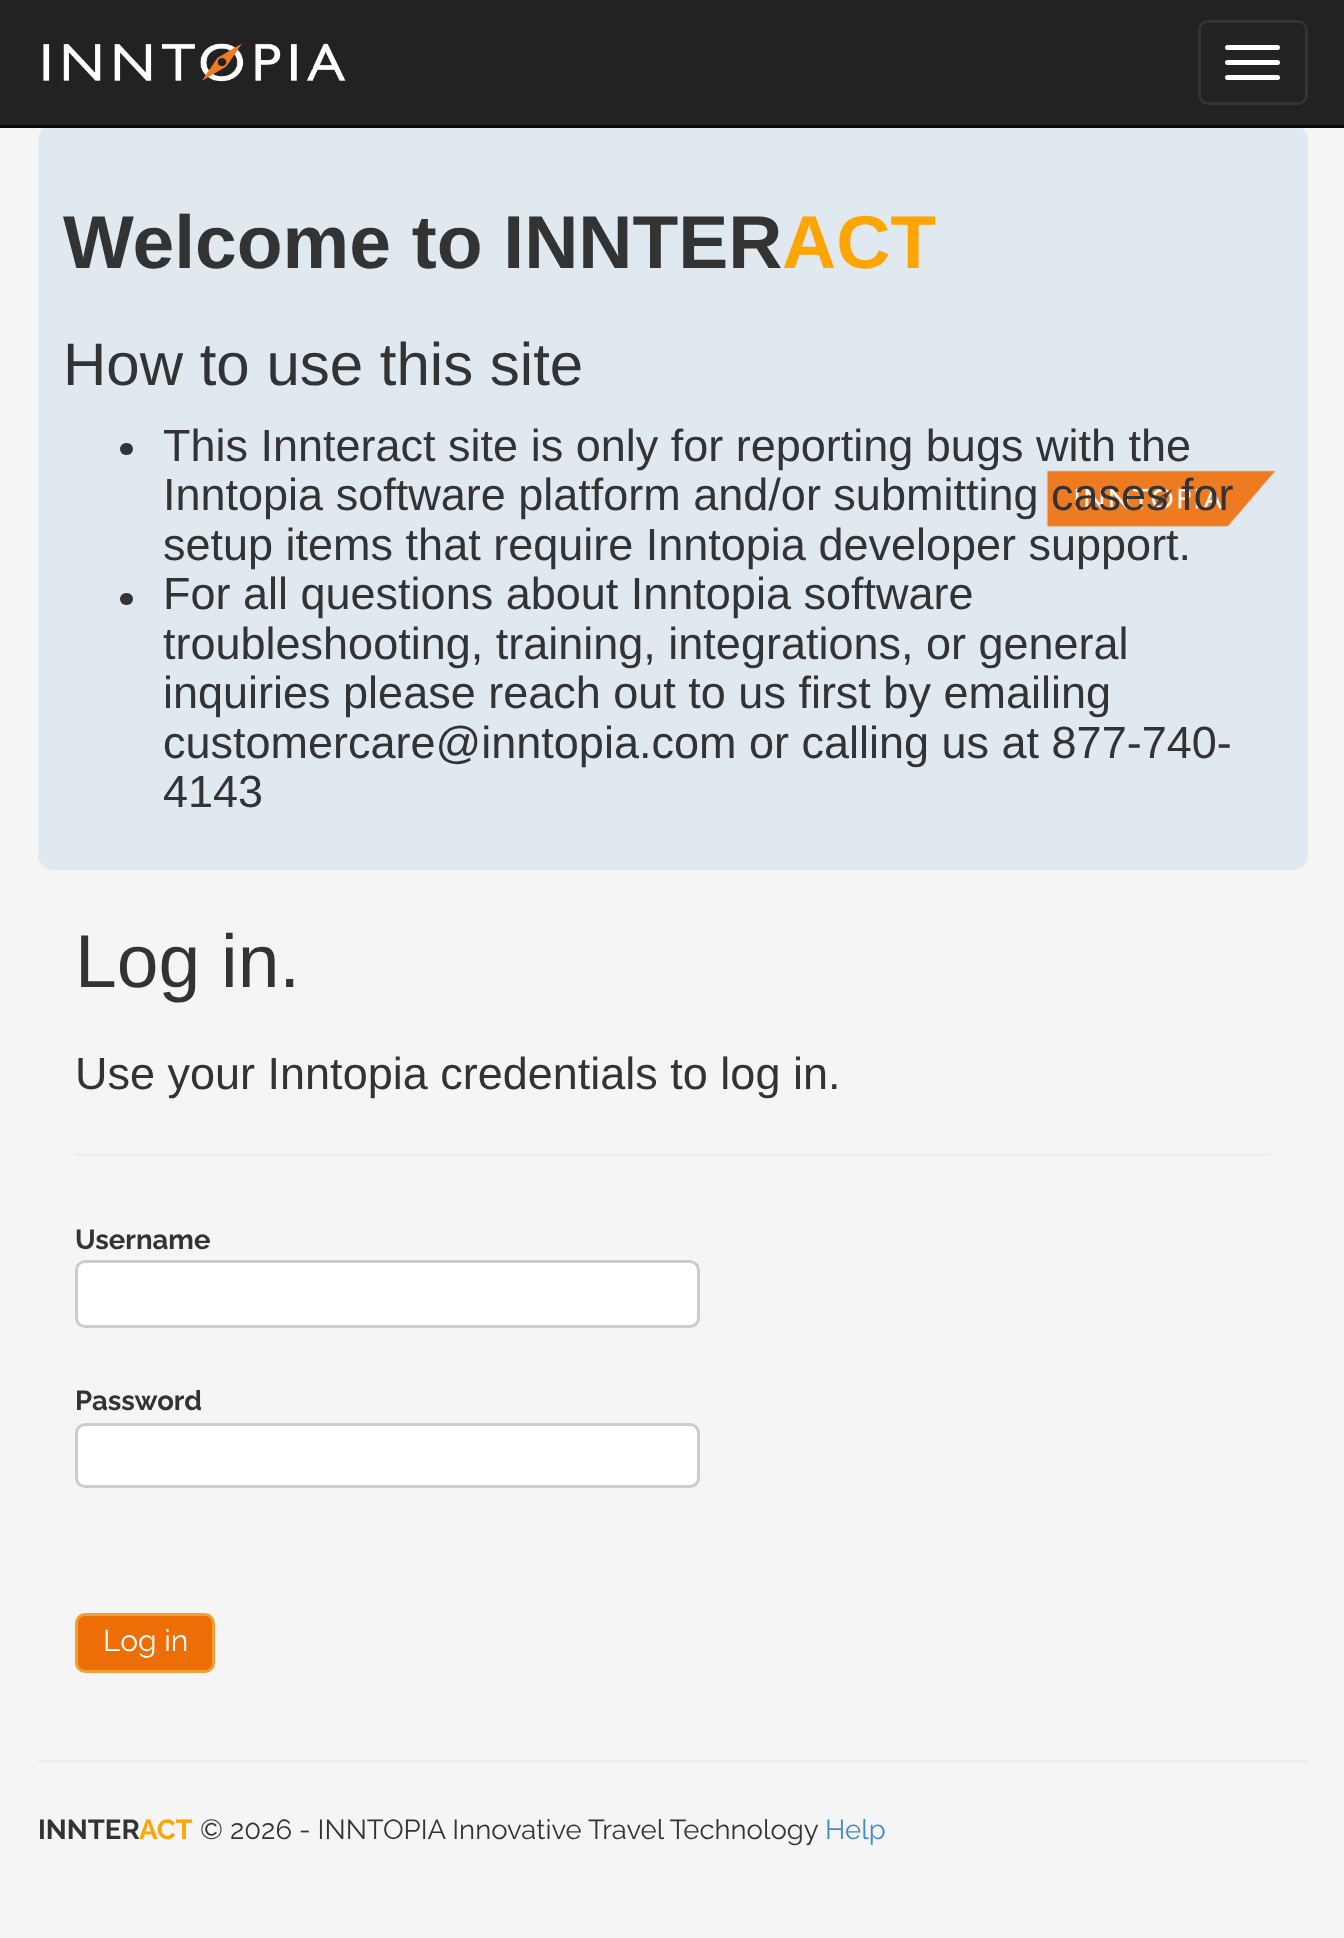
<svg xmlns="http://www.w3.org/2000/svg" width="1344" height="1938">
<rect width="100%" height="100%" fill="#f5f5f5"/>
<rect width="1344" height="125" fill="#222"/>
<rect x="38" y="125" width="1270" height="745" rx="15" fill="#e0e8f0"/>
<rect y="125" width="1344" height="3" fill="#080808"/>
<image x="43" y="43" width="303" height="39" href="media/1.png"/>
<rect x="1199.5" y="21.5" width="107" height="82" rx="8.5" fill="none" stroke="#333" stroke-width="3"/>
<rect x="1225" y="45" width="55" height="5" rx="2.5" fill="#fff"/>
<rect x="1225" y="60" width="55" height="5" rx="2.5" fill="#fff"/>
<rect x="1225" y="75" width="55" height="5" rx="2.5" fill="#fff"/>
<image x="1046" y="470" width="230" height="57" href="media/2.png"/>
<text x="63" y="268" style="font-family:Liberation Sans;font-size:75px;font-weight:bold;fill:#333">Welcome to INNTER</text>
<text x="782" y="268" style="font-family:Liberation Sans;font-size:75px;font-weight:bold;fill:#ffa500">ACT</text>
<text x="63" y="385" style="font-family:Liberation Sans;font-size:60px;fill:#333">How to use this site</text>
<rect x="120" y="443" width="13" height="12" rx="6" fill="#333"/>
<text x="163" y="461" style="font-family:Liberation Sans;font-size:45px;fill:#333">This Innteract site is only for reporting bugs with the</text>
<text x="163" y="510" style="font-family:Liberation Sans;font-size:45px;fill:#333">Inntopia software platform and/or submitting cases for</text>
<text x="163" y="560" style="font-family:Liberation Sans;font-size:45px;fill:#333">setup items that require Inntopia developer support.</text>
<rect x="120" y="593" width="13" height="12" rx="6" fill="#333"/>
<text x="163" y="609" style="font-family:Liberation Sans;font-size:45px;fill:#333">For all questions about Inntopia software</text>
<text x="163" y="659" style="font-family:Liberation Sans;font-size:45px;fill:#333">troubleshooting, training, integrations, or general</text>
<text x="163" y="708" style="font-family:Liberation Sans;font-size:45px;fill:#333">inquiries please reach out to us first by emailing</text>
<text x="163" y="758" style="font-family:Liberation Sans;font-size:45px;fill:#333">customercare@inntopia.com or calling us at 877-740-</text>
<text x="163" y="807" style="font-family:Liberation Sans;font-size:45px;fill:#333">4143</text>
<text x="75" y="987" style="font-family:Liberation Sans;font-size:75px;fill:#333">Log in.</text>
<text x="75" y="1089" style="font-family:Liberation Sans;font-size:45px;fill:#333">Use your Inntopia credentials to log in.</text>
<rect x="75" y="1153" width="1195" height="3" fill="#eee"/>
<text x="75" y="1249" style="font-family:Raleway;font-size:27.5px;font-weight:bold;fill:#333">Username</text>
<rect x="76.5" y="1261.5" width="622" height="65" rx="8.5" fill="#fff" stroke="#ccc" stroke-width="3"/>
<text x="75" y="1410" style="font-family:Raleway;font-size:27.5px;font-weight:bold;fill:#333">Password</text>
<rect x="76.5" y="1424.5" width="622" height="62" rx="8.5" fill="#fff" stroke="#ccc" stroke-width="3"/>
<rect x="76.5" y="1614.5" width="137" height="57" rx="8.5" fill="#ed6e06" stroke="#eea236" stroke-width="3"/>
<text x="103" y="1651" style="font-family:Raleway;font-size:30px;fill:#fff">Log in</text>
<rect x="38" y="1760" width="1270" height="3" fill="#eee"/>
<text x="38" y="1839" style="font-family:Raleway;font-size:27.5px;font-weight:bold;fill:#333">INNTER</text>
<text x="139" y="1839" style="font-family:Raleway;font-size:27.5px;font-weight:bold;fill:#ffa500">ACT</text>
<text x="200" y="1839" style="font-family:Raleway;font-size:27.5px;fill:#333">© 2026 - INNTOPIA Innovative Travel Technology</text>
<text x="825" y="1839" style="font-family:Raleway;font-size:27.5px;fill:#428bca">Help</text>
</svg>
